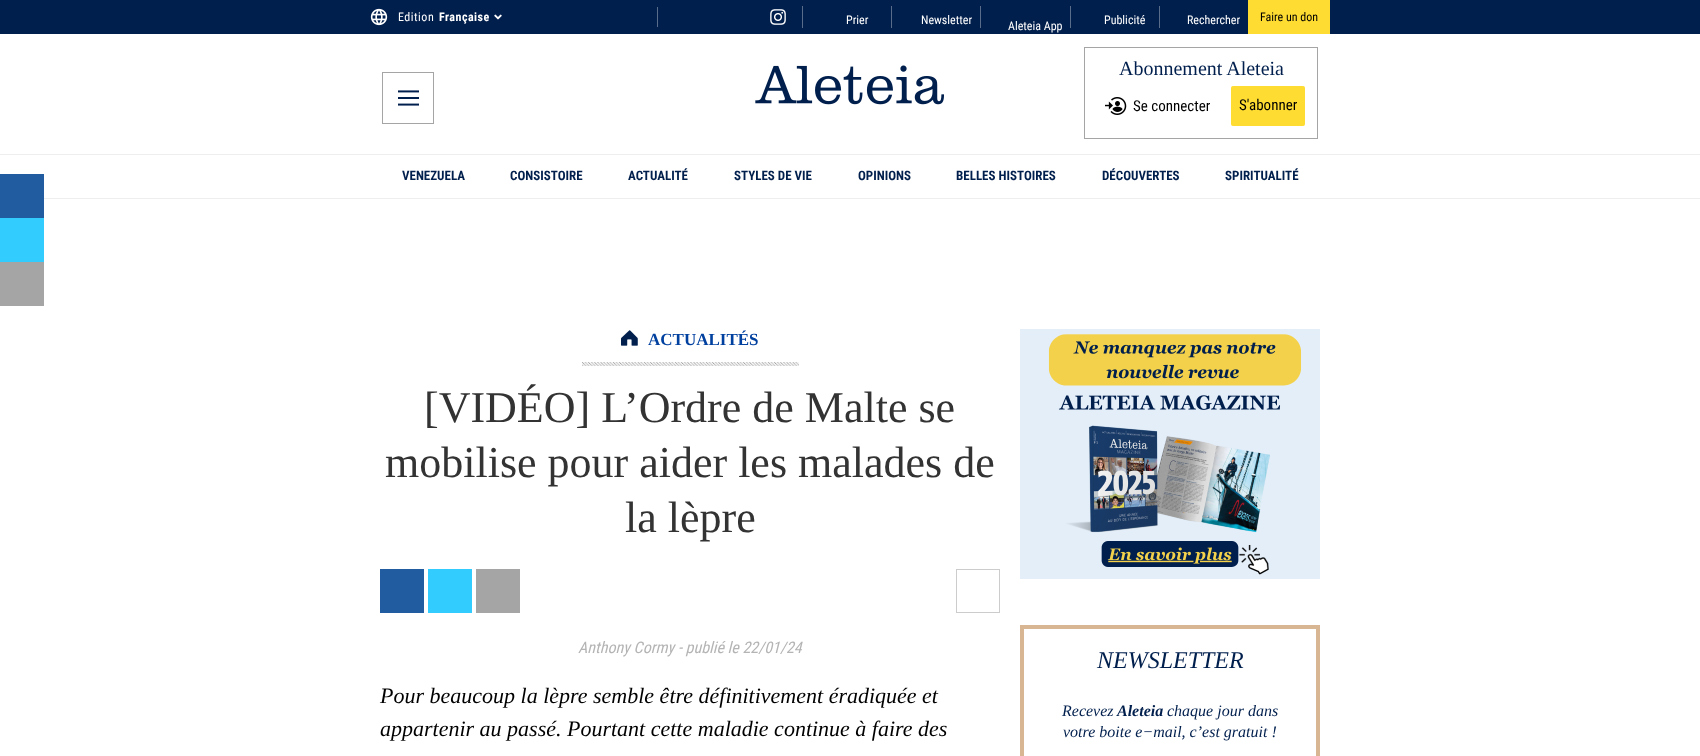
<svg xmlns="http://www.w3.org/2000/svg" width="1700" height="756">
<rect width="100%" height="100%" fill="#fff"/>
<rect width="1700" height="34" fill="#001f4d"/>
<image x="370" y="8" width="18" height="18" href="media/1.png"/>
<text x="398" y="21" style="font-family:Roboto Condensed;font-size:12px;letter-spacing:0.5px;fill:#fff">Edition</text>
<text x="439" y="21" style="font-family:Roboto Condensed;font-size:12px;font-weight:bold;letter-spacing:0.5px;fill:#fff">Française</text>
<image x="494" y="14" width="8" height="6" href="media/2.png"/>
<rect x="657" y="7" width="1" height="20" fill="#596d8b"/>
<image x="770" y="9" width="16" height="16" href="media/3.png"/>
<rect x="802" y="6" width="1" height="22" fill="#596d8b"/>
<text x="846" y="24" style="font-family:Roboto Condensed;font-size:12px;fill:#fff">Prier</text>
<rect x="891" y="6" width="1" height="22" fill="#596d8b"/>
<text x="921" y="24" style="font-family:Roboto Condensed;font-size:12px;fill:#fff">Newsletter</text>
<rect x="1070" y="6" width="1" height="22" fill="#596d8b"/>
<text x="1104" y="24" style="font-family:Roboto Condensed;font-size:12px;fill:#fff">Publicité</text>
<rect x="1159" y="6" width="1" height="22" fill="#596d8b"/>
<text x="1187" y="24" style="font-family:Roboto Condensed;font-size:12px;fill:#fff">Rechercher</text>
<rect x="1248" width="82" height="34" fill="#ffdc31"/>
<text x="1260" y="21" style="font-family:Roboto Condensed;font-size:12px;fill:#000">Faire un don</text>
<rect x="980" y="6" width="1" height="22" fill="#596d8b"/>
<text x="1008" y="30" style="font-family:Roboto Condensed;font-size:12px;fill:#fff">Aleteia App</text>
<rect x="382.5" y="72.5" width="51" height="51" fill="none" stroke="#a5a5a5"/>
<image x="398" y="90" width="21" height="16" href="media/4.png"/>
<image x="755" y="65" width="189" height="40" href="media/5.png"/>
<rect x="1084.5" y="47.5" width="233" height="91" fill="none" stroke="#a5a5a5"/>
<text x="1119" y="75" style="font-family:Liberation Serif;font-size:20px;fill:#001f4d">Abonnement Aleteia</text>
<image x="1105" y="97" width="22" height="18" href="media/6.png"/>
<text x="1133" y="111" style="font-family:Roboto Condensed;font-size:15px;fill:#000">Se connecter</text>
<rect x="1231" y="86" width="74" height="40" rx="2" fill="#ffdc31"/>
<text x="1239" y="110" style="font-family:Roboto Condensed;font-size:15px;fill:#000">S'abonner</text>
<rect y="154" width="1700" height="1" fill="#eee"/>
<rect x="44" y="198" width="1656" height="1" fill="#eee"/>
<text x="402" y="180" style="font-family:Roboto Condensed;font-size:13px;font-weight:bold;fill:#001f4d">VENEZUELA</text>
<text x="510" y="180" style="font-family:Roboto Condensed;font-size:13px;font-weight:bold;fill:#001f4d">CONSISTOIRE</text>
<text x="628" y="180" style="font-family:Roboto Condensed;font-size:13px;font-weight:bold;fill:#001f4d">ACTUALITÉ</text>
<text x="734" y="180" style="font-family:Roboto Condensed;font-size:13px;font-weight:bold;fill:#001f4d">STYLES DE VIE</text>
<text x="858" y="180" style="font-family:Roboto Condensed;font-size:13px;font-weight:bold;fill:#001f4d">OPINIONS</text>
<text x="956" y="180" style="font-family:Roboto Condensed;font-size:13px;font-weight:bold;fill:#001f4d">BELLES HISTOIRES</text>
<text x="1102" y="180" style="font-family:Roboto Condensed;font-size:13px;font-weight:bold;fill:#001f4d">DÉCOUVERTES</text>
<text x="1225" y="180" style="font-family:Roboto Condensed;font-size:13px;font-weight:bold;fill:#001f4d">SPIRITUALITÉ</text>
<rect y="174" width="44" height="44" fill="#225ca0"/>
<rect y="218" width="44" height="44" fill="#3cf"/>
<rect y="262" width="44" height="44" fill="#a5a5a5"/>
<image x="621" y="330" width="17" height="16" href="media/7.png"/>
<text x="648" y="345" style="font-family:Liberation Serif;font-size:17px;font-weight:bold;fill:#00409f">ACTUALITÉS</text>
<image x="582" y="362" width="217" height="4" href="media/8.png"/>
<text x="424" y="422" style="font-family:Liberation Serif;font-size:44px;fill:#333">[VIDÉO] L’Ordre de Malte se</text>
<text x="385" y="477" style="font-family:Liberation Serif;font-size:44px;fill:#333">mobilise pour aider les malades de</text>
<text x="625" y="532" style="font-family:Liberation Serif;font-size:44px;fill:#333">la lèpre</text>
<rect x="380" y="569" width="44" height="44" fill="#225ca0"/>
<rect x="428" y="569" width="44" height="44" fill="#3cf"/>
<rect x="476" y="569" width="44" height="44" fill="#a5a5a5"/>
<rect x="956.5" y="569.5" width="43" height="43" fill="none" stroke="#ccc"/>
<text x="578" y="653" style="font-family:Roboto Condensed;font-size:16px;font-style:italic;fill:#b4b4b4">Anthony Cormy - publié le 22/01/24</text>
<text x="380" y="703" style="font-family:Liberation Serif;font-size:22px;font-style:italic;fill:#000">Pour beaucoup la lèpre semble être définitivement éradiquée et</text>
<text x="380" y="736" style="font-family:Liberation Serif;font-size:22px;font-style:italic;fill:#000">appartenir au passé. Pourtant cette maladie continue à faire des</text>
<image x="1020" y="329" width="300" height="250" href="media/9.png"/>
<rect x="1022" y="627" width="296" height="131" fill="none" stroke="#d8b593" stroke-width="4"/>
<text x="1097" y="668" style="font-family:Liberation Serif;font-size:24px;font-style:italic;fill:#001f4d">NEWSLETTER</text>
<text x="1062" y="716" style="font-family:Liberation Serif;font-size:16px;font-style:italic;fill:#001f4d">Recevez</text>
<text x="1117" y="716" style="font-family:Liberation Serif;font-size:16px;font-weight:bold;font-style:italic;fill:#001f4d">Aleteia</text>
<text x="1167" y="716" style="font-family:Liberation Serif;font-size:16px;font-style:italic;fill:#001f4d">chaque jour dans</text>
<text x="1063" y="737" style="font-family:Liberation Serif;font-size:16px;font-style:italic;fill:#001f4d">votre boite e−mail, c’est gratuit !</text>
</svg>
